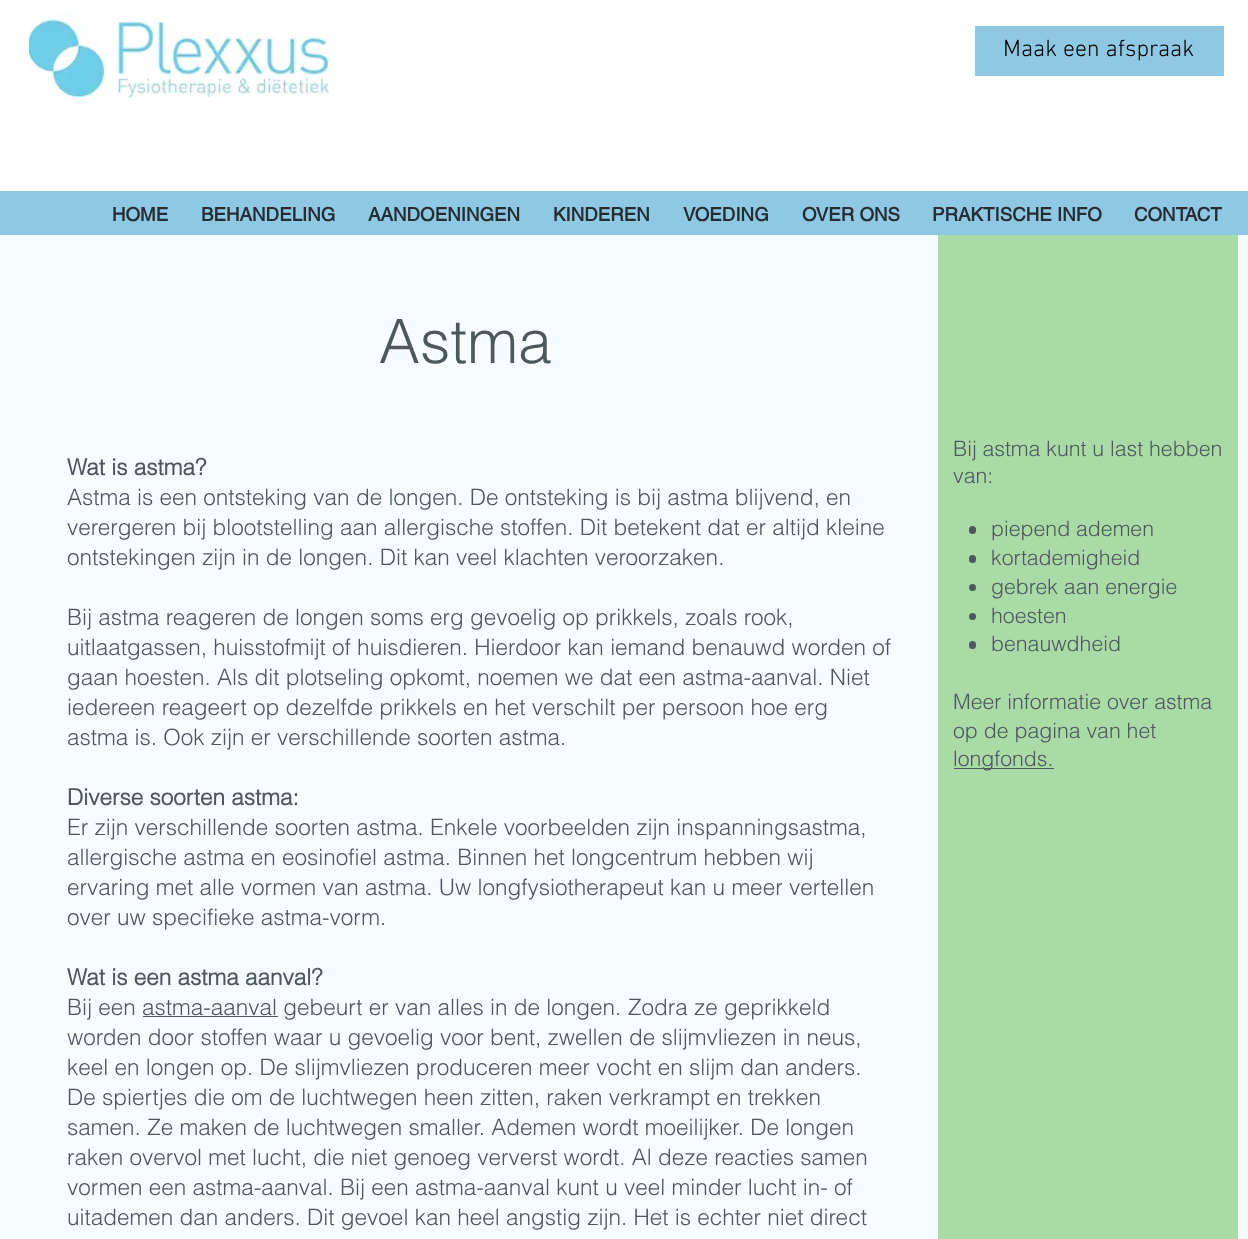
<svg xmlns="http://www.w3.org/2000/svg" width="1248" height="1239">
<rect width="100%" height="100%" fill="#f6fcff"/>
<rect width="1248" height="191" fill="#fff"/>
<rect y="191" width="1248" height="43" fill="#8fc8e3"/>
<image x="28" y="13" width="301" height="85" href="media/1.png"/>
<rect x="975" y="26" width="249" height="50" fill="#8fc8e3"/>
<text x="1003" y="56" style="font-family:'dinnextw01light';font-size:23.75px;font-weight:300;fill:#000">Maak een afspraak</text>
<text x="112" y="221" style="font-family:helvetica;font-size:18.75px;font-weight:bold;fill:#252d34">HOME</text>
<text x="201" y="221" style="font-family:helvetica;font-size:18.75px;font-weight:bold;fill:#252d34">BEHANDELING</text>
<text x="368" y="221" style="font-family:helvetica;font-size:18.75px;font-weight:bold;fill:#252d34">AANDOENINGEN</text>
<text x="553" y="221" style="font-family:helvetica;font-size:18.75px;font-weight:bold;fill:#252d34">KINDEREN</text>
<text x="683" y="221" style="font-family:helvetica;font-size:18.75px;font-weight:bold;fill:#252d34">VOEDING</text>
<text x="802" y="221" style="font-family:helvetica;font-size:18.75px;font-weight:bold;fill:#252d34">OVER ONS</text>
<text x="932" y="221" style="font-family:helvetica;font-size:18.75px;font-weight:bold;fill:#252d34">PRAKTISCHE INFO</text>
<text x="1134" y="221" style="font-family:helvetica;font-size:18.75px;font-weight:bold;fill:#252d34">CONTACT</text>
<text x="379" y="363" style="font-family:helvetica;font-size:61px;font-weight:300;fill:#4c585d">Astma</text>
<text x="67" y="475" style="font-family:'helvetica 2';font-size:22.5px;font-weight:bold;fill:#4c585d">Wat is astma?</text>
<text x="67" y="505" style="font-family:helvetica;font-size:22.5px;font-weight:300;fill:#4c585d">Astma is een ontsteking van de longen. De ontsteking is bij astma blijvend, en</text>
<text x="67" y="535" style="font-family:helvetica;font-size:22.5px;font-weight:300;fill:#4c585d">verergeren bij blootstelling aan allergische stoffen. Dit betekent dat er altijd kleine</text>
<text x="67" y="565" style="font-family:helvetica;font-size:22.5px;font-weight:300;fill:#4c585d">ontstekingen zijn in de longen. Dit kan veel klachten veroorzaken.</text>
<text x="67" y="625" style="font-family:helvetica;font-size:22.5px;font-weight:300;fill:#4c585d">Bij astma reageren de longen soms erg gevoelig op prikkels, zoals rook,</text>
<text x="67" y="655" style="font-family:helvetica;font-size:22.5px;font-weight:300;fill:#4c585d">uitlaatgassen, huisstofmijt of huisdieren. Hierdoor kan iemand benauwd worden of</text>
<text x="67" y="685" style="font-family:helvetica;font-size:22.5px;font-weight:300;fill:#4c585d">gaan hoesten. Als dit plotseling opkomt, noemen we dat een astma-aanval. Niet</text>
<text x="67" y="715" style="font-family:helvetica;font-size:22.5px;font-weight:300;fill:#4c585d">iedereen reageert op dezelfde prikkels en het verschilt per persoon hoe erg</text>
<text x="67" y="745" style="font-family:helvetica;font-size:22.5px;font-weight:300;fill:#4c585d">astma is. Ook zijn er verschillende soorten astma.</text>
<text x="67" y="805" style="font-family:'helvetica 2';font-size:22.5px;font-weight:bold;fill:#4c585d">Diverse soorten astma:</text>
<text x="67" y="835" style="font-family:helvetica;font-size:22.5px;font-weight:300;fill:#4c585d">Er zijn verschillende soorten astma. Enkele voorbeelden zijn inspanningsastma,</text>
<text x="67" y="865" style="font-family:helvetica;font-size:22.5px;font-weight:300;fill:#4c585d">allergische astma en eosinofiel astma. Binnen het longcentrum hebben wij</text>
<text x="67" y="895" style="font-family:helvetica;font-size:22.5px;font-weight:300;fill:#4c585d">ervaring met alle vormen van astma. Uw longfysiotherapeut kan u meer vertellen</text>
<text x="67" y="925" style="font-family:helvetica;font-size:22.5px;font-weight:300;fill:#4c585d">over uw specifieke astma-vorm.</text>
<text x="67" y="985" style="font-family:'helvetica 2';font-size:22.5px;font-weight:bold;fill:#4c585d">Wat is een astma aanval?</text>
<text x="67" y="1015" style="font-family:helvetica;font-size:22.5px;font-weight:300;fill:#4c585d">Bij een astma-aanval gebeurt er van alles in de longen. Zodra ze geprikkeld</text>
<rect x="143" y="1016" width="135" height="1" fill="#4c585d"/>
<text x="67" y="1045" style="font-family:helvetica;font-size:22.5px;font-weight:300;fill:#4c585d">worden door stoffen waar u gevoelig voor bent, zwellen de slijmvliezen in neus,</text>
<text x="67" y="1075" style="font-family:helvetica;font-size:22.5px;font-weight:300;fill:#4c585d">keel en longen op. De slijmvliezen produceren meer vocht en slijm dan anders.</text>
<text x="67" y="1105" style="font-family:helvetica;font-size:22.5px;font-weight:300;fill:#4c585d">De spiertjes die om de luchtwegen heen zitten, raken verkrampt en trekken</text>
<text x="67" y="1135" style="font-family:helvetica;font-size:22.5px;font-weight:300;fill:#4c585d">samen. Ze maken de luchtwegen smaller. Ademen wordt moeilijker. De longen</text>
<text x="67" y="1165" style="font-family:helvetica;font-size:22.5px;font-weight:300;fill:#4c585d">raken overvol met lucht, die niet genoeg ververst wordt. Al deze reacties samen</text>
<text x="67" y="1195" style="font-family:helvetica;font-size:22.5px;font-weight:300;fill:#4c585d">vormen een astma-aanval. Bij een astma-aanval kunt u veel minder lucht in- of</text>
<text x="67" y="1225" style="font-family:helvetica;font-size:22.5px;font-weight:300;fill:#4c585d">uitademen dan anders. Dit gevoel kan heel angstig zijn. Het is echter niet direct</text>
<rect x="938" y="235" width="300" height="1004" fill="#aadba7"/>
<text x="953" y="456" style="font-family:helvetica;font-size:21.25px;font-weight:300;fill:#4c585d">Bij astma kunt u last hebben</text>
<text x="953" y="483" style="font-family:helvetica;font-size:21.25px;font-weight:300;fill:#4c585d">van:</text>
<rect x="969" y="526" width="7" height="8" rx="3.5" fill="#4c585d"/>
<text x="991" y="536" style="font-family:helvetica;font-size:21.25px;font-weight:300;fill:#4c585d">piepend ademen</text>
<rect x="969" y="555" width="7" height="8" rx="3.5" fill="#4c585d"/>
<text x="991" y="565" style="font-family:helvetica;font-size:21.25px;font-weight:300;fill:#4c585d">kortademigheid</text>
<circle cx="972.5" cy="587.5" r="3.5" fill="#4c585d"/>
<text x="991" y="594" style="font-family:helvetica;font-size:21.25px;font-weight:300;fill:#4c585d">gebrek aan energie</text>
<circle cx="972.5" cy="616.5" r="3.5" fill="#4c585d"/>
<text x="991" y="623" style="font-family:helvetica;font-size:21.25px;font-weight:300;fill:#4c585d">hoesten</text>
<rect x="969" y="641" width="7" height="8" rx="3.5" fill="#4c585d"/>
<text x="991" y="651" style="font-family:helvetica;font-size:21.25px;font-weight:300;fill:#4c585d">benauwdheid</text>
<text x="953" y="709" style="font-family:helvetica;font-size:21.25px;font-weight:300;fill:#4c585d">Meer informatie over astma</text>
<text x="953" y="738" style="font-family:helvetica;font-size:21.25px;font-weight:300;fill:#4c585d">op de pagina van het</text>
<rect x="954" y="768" width="100" height="1" fill="#4c585d"/>
<text x="953" y="766" style="font-family:helvetica;font-size:21.25px;font-weight:300;fill:#4c585d">longfonds.</text>
<rect y="234" width="1248" height="1" fill="#8bc7e3"/>
</svg>
